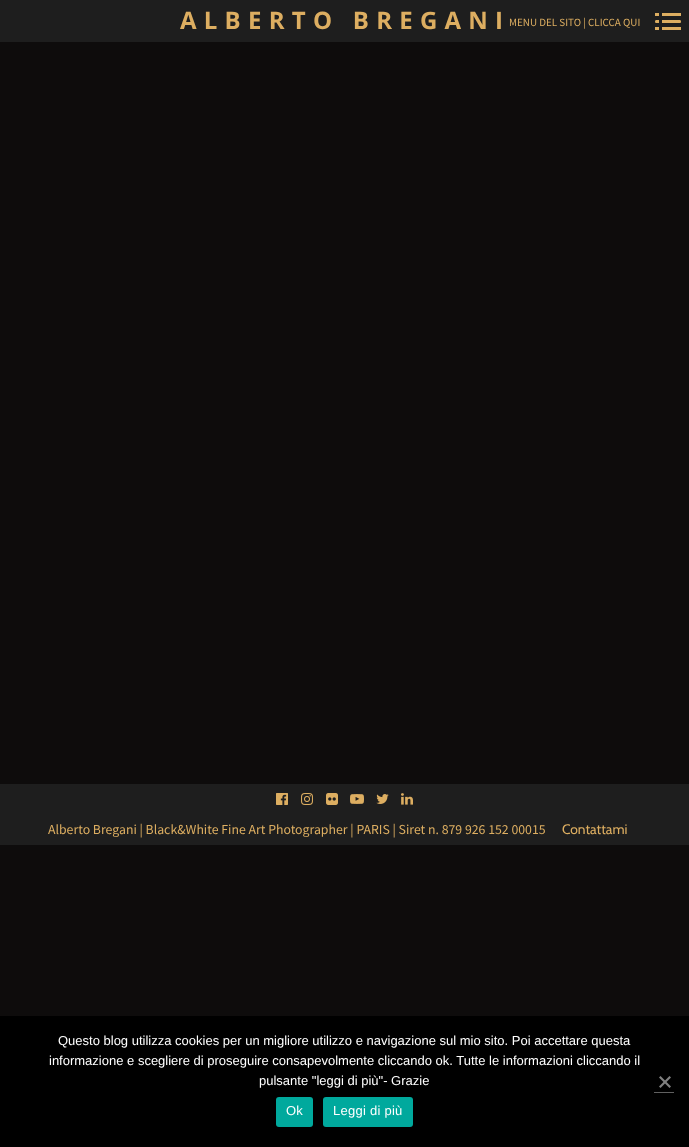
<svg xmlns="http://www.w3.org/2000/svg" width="689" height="1147">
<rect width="100%" height="100%" fill="#0e0c0c"/>
<rect width="689" height="42" fill="#1e1e1e"/>
<text x="180" y="29" style="font-family:Open Sans;font-size:24px;font-weight:bold;letter-spacing:7.25px;fill:#ddae61">ALBERTO BREGANI</text>
<text x="509" y="26" style="font-family:Source Sans Pro;font-size:11px;fill:#ddae61">MENU DEL SITO | CLICCA QUI</text>
<path d="M656.5 20h2.5v3h-2.5c-1 0-1.5-.5-1.5-1.5c0-1 .5-1.5 1.5-1.5z" fill="#ddae61"/>
<path d="M662 20h17.5c1 0 1.5 .5 1.5 1.5c0 1-.5 1.5-1.5 1.5h-17.5z" fill="#ddae61"/>
<rect x="655" y="13" width="4" height="3" fill="#ddae61"/>
<rect x="662" y="13" width="19" height="3" fill="#ddae61"/>
<rect x="655" y="27" width="4" height="3" fill="#ddae61"/>
<rect x="662" y="27" width="19" height="3" fill="#ddae61"/>
<rect y="784" width="689" height="61" fill="#1e1e1e"/>
<image x="276" y="793" width="12" height="12" href="media/1.png"/>
<image x="301" y="793" width="12" height="12" href="media/2.png"/>
<image x="326" y="793" width="12" height="12" href="media/3.png"/>
<image x="350" y="794" width="14" height="10" href="media/4.png"/>
<image x="376" y="794" width="13" height="10" href="media/5.png"/>
<image x="401" y="793" width="12" height="12" href="media/6.png"/>
<text x="48" y="834" style="font-family:Source Sans Pro;font-size:13.75px;fill:#ddae61">Alberto Bregani | Black&amp;White Fine Art Photographer | PARIS | Siret n. 879 926 152 00015</text>
<text x="562" y="834" style="font-family:Cabin;font-size:13.75px;fill:#ddae61">Contattami</text>
<rect y="1016" width="689" height="131" fill="#000"/>
<text x="58" y="1045" style="font-family:Liberation Sans;font-size:13px;fill:#fff">Questo blog utilizza cookies per un migliore utilizzo e navigazione sul mio sito. Poi accettare questa</text>
<text x="49" y="1065" style="font-family:Liberation Sans;font-size:13px;fill:#fff">informazione e scegliere di proseguire consapevolmente cliccando ok. Tutte le informazioni cliccando il</text>
<text x="259" y="1085" style="font-family:Liberation Sans;font-size:13px;fill:#fff">pulsante "leggi di più"- Grazie</text>
<rect x="654" y="1092" width="20" height="1" fill="#606060"/>
<path d="M669.5 1076l1.5 1.5l-10.5 10.5l-1.5-1.5z" fill="#808080"/>
<path d="M659 1077.5l1.5-1.5l10.5 10.5l-1.5 1.5z" fill="#808080"/>
<rect x="276" y="1097" width="37" height="30" rx="3" fill="#00a99d"/>
<text x="286" y="1115" style="font-family:Liberation Sans;font-size:13px;letter-spacing:0.25px;fill:#fff">Ok</text>
<rect x="323" y="1097" width="90" height="30" rx="3" fill="#00a99d"/>
<text x="333" y="1115" style="font-family:Liberation Sans;font-size:13px;letter-spacing:0.25px;fill:#fff">Leggi di più</text>
</svg>
